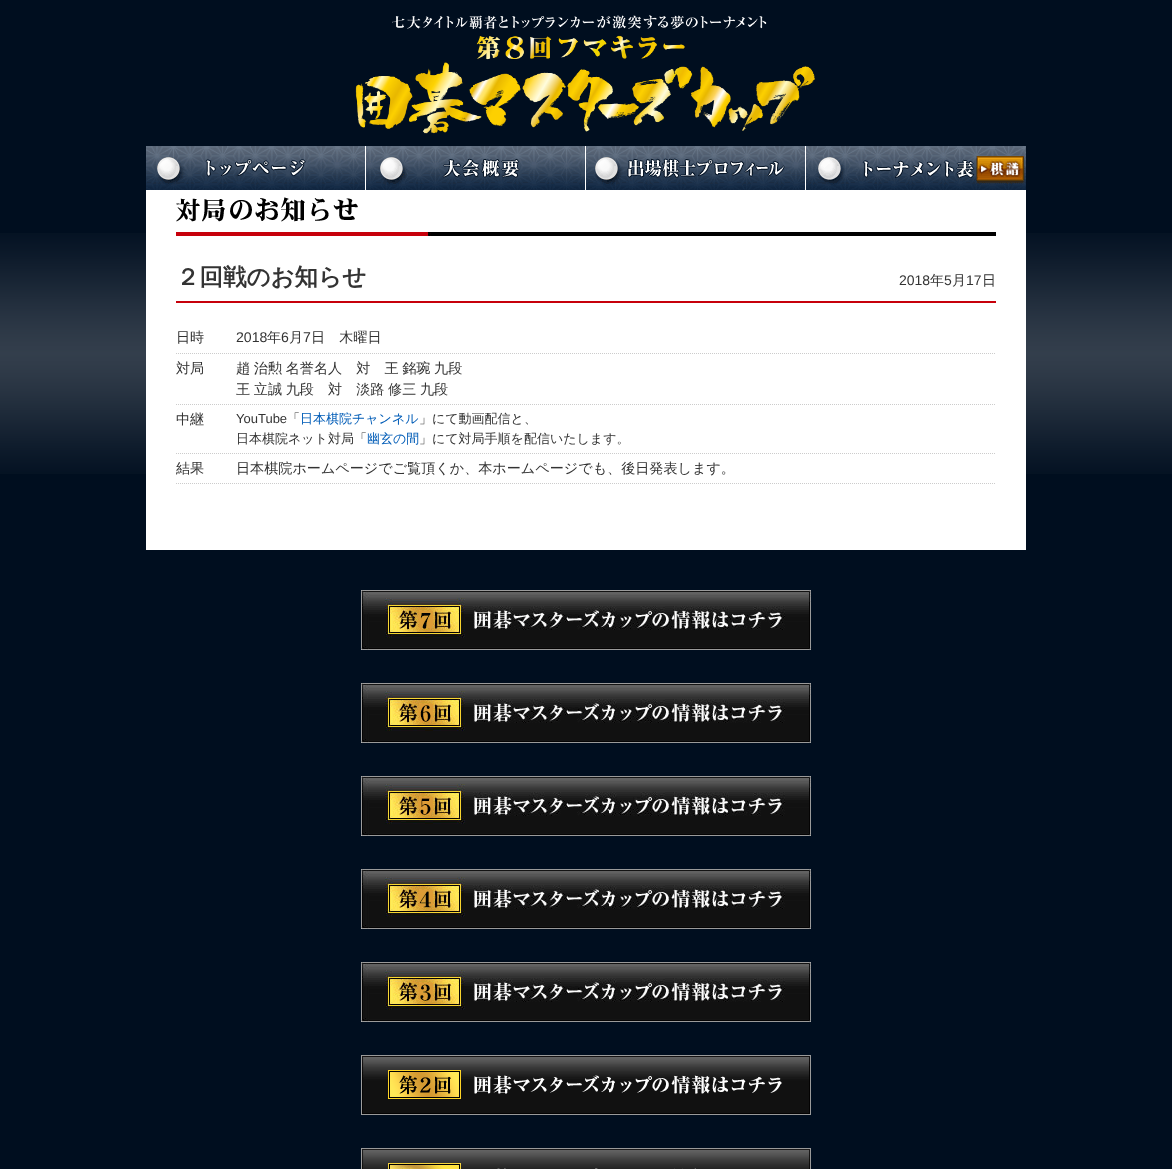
<svg xmlns="http://www.w3.org/2000/svg" width="1172" height="1169">
<rect width="100%" height="100%" fill="#000e1f"/>
<image x="0" y="233" width="1172" height="241" href="media/1.png"/>
<image x="355" y="15" width="460" height="119" href="media/2.png"/>
<rect x="146" y="146" width="880" height="404" fill="#fff"/>
<image x="146" y="146" width="219" height="44" href="media/3.png"/>
<image x="366" y="146" width="219" height="44" href="media/4.png"/>
<image x="586" y="146" width="219" height="44" href="media/5.png"/>
<image x="806" y="146" width="220" height="44" href="media/6.png"/>
<image x="176" y="197" width="820" height="39" href="media/7.png"/>
<rect x="176" y="301" width="820" height="2" fill="#c7000b"/>
<text x="176" y="285" style="font-family:WenQuanYi Zen Hei;font-size:23.5px;font-weight:bold;fill:#333">２回戦のお知らせ</text>
<text x="899" y="285" style="font-family:Liberation Sans;font-size:14px;fill:#333">2018</text>
<text x="930" y="285" style="font-family:WenQuanYi Zen Hei;font-size:14px;font-weight:500;fill:#333">年</text>
<text x="944" y="285" style="font-family:Liberation Sans;font-size:14px;fill:#333">5</text>
<text x="952" y="285" style="font-family:WenQuanYi Zen Hei;font-size:14px;font-weight:500;fill:#333">月</text>
<text x="966" y="285" style="font-family:Liberation Sans;font-size:14px;fill:#333">17</text>
<text x="982" y="285" style="font-family:WenQuanYi Zen Hei;font-size:14px;font-weight:500;fill:#333">日</text>
<path d="M176 353.5h820" fill="none" stroke="#ccc" stroke-dasharray="1 1"/>
<text x="176" y="342" style="font-family:WenQuanYi Zen Hei;font-size:14.1px;font-weight:500;fill:#333">日時</text>
<text x="236" y="342" style="font-family:Liberation Sans;font-size:14.1px;fill:#333">2018</text>
<text x="267" y="342" style="font-family:WenQuanYi Zen Hei;font-size:14.1px;font-weight:500;fill:#333">年</text>
<text x="281" y="342" style="font-family:Liberation Sans;font-size:14.1px;fill:#333">6</text>
<text x="289" y="342" style="font-family:WenQuanYi Zen Hei;font-size:14.1px;font-weight:500;fill:#333">月</text>
<text x="303" y="342" style="font-family:Liberation Sans;font-size:14.1px;fill:#333">7</text>
<text x="311" y="342" style="font-family:WenQuanYi Zen Hei;font-size:14.1px;font-weight:500;fill:#333">日　木曜日</text>
<path d="M176 404.5h820" fill="none" stroke="#ccc" stroke-dasharray="1 1"/>
<text x="176" y="373" style="font-family:WenQuanYi Zen Hei;font-size:14.1px;font-weight:500;fill:#333">対局</text>
<text x="236" y="373" word-spacing="-0.5" style="font-family:WenQuanYi Zen Hei;font-size:14.1px;font-weight:500;fill:#333">趙 治勲 名誉名人　対　王 銘琬 九段</text>
<text x="236" y="394" word-spacing="-0.5" style="font-family:WenQuanYi Zen Hei;font-size:14.1px;font-weight:500;fill:#333">王 立誠 九段　対　淡路 修三 九段</text>
<path d="M176 453.5h820" fill="none" stroke="#ccc" stroke-dasharray="1 1"/>
<text x="176" y="424" style="font-family:WenQuanYi Zen Hei;font-size:14.1px;font-weight:500;fill:#333">中継</text>
<text x="236" y="423" style="font-family:Liberation Sans;font-size:13px;fill:#333">YouTube</text>
<text x="287" y="423" style="font-family:WenQuanYi Zen Hei;font-size:13px;font-weight:500;fill:#333">「</text>
<text x="300" y="423" style="font-family:WenQuanYi Zen Hei;font-size:13px;font-weight:500;fill:#015cb7">日本棋院チャンネル</text>
<text x="419" y="423" style="font-family:WenQuanYi Zen Hei;font-size:13px;font-weight:500;fill:#333">」にて動画配信と、</text>
<text x="236" y="443" style="font-family:WenQuanYi Zen Hei;font-size:13px;font-weight:500;fill:#333">日本棋院ネット対局「</text>
<text x="367" y="443" style="font-family:WenQuanYi Zen Hei;font-size:13px;font-weight:500;fill:#015cb7">幽玄の間</text>
<text x="419" y="443" style="font-family:WenQuanYi Zen Hei;font-size:13px;font-weight:500;fill:#333">」にて対局手順を配信いたします。</text>
<path d="M176 483.5h820" fill="none" stroke="#ccc" stroke-dasharray="1 1"/>
<text x="176" y="473" style="font-family:WenQuanYi Zen Hei;font-size:14.1px;font-weight:500;fill:#333">結果</text>
<text x="236" y="473" style="font-family:WenQuanYi Zen Hei;font-size:14.1px;font-weight:500;fill:#333">日本棋院ホームページでご覧頂くか、本ホームページでも、後日発表します。</text>
<image x="361" y="590" width="450" height="60" href="media/8.png"/>
<image x="361" y="683" width="450" height="60" href="media/9.png"/>
<image x="361" y="776" width="450" height="60" href="media/10.png"/>
<image x="361" y="869" width="450" height="60" href="media/11.png"/>
<image x="361" y="962" width="450" height="60" href="media/12.png"/>
<image x="361" y="1055" width="450" height="60" href="media/13.png"/>
<image x="361" y="1148" width="450" height="21" href="media/14.png"/>
</svg>
